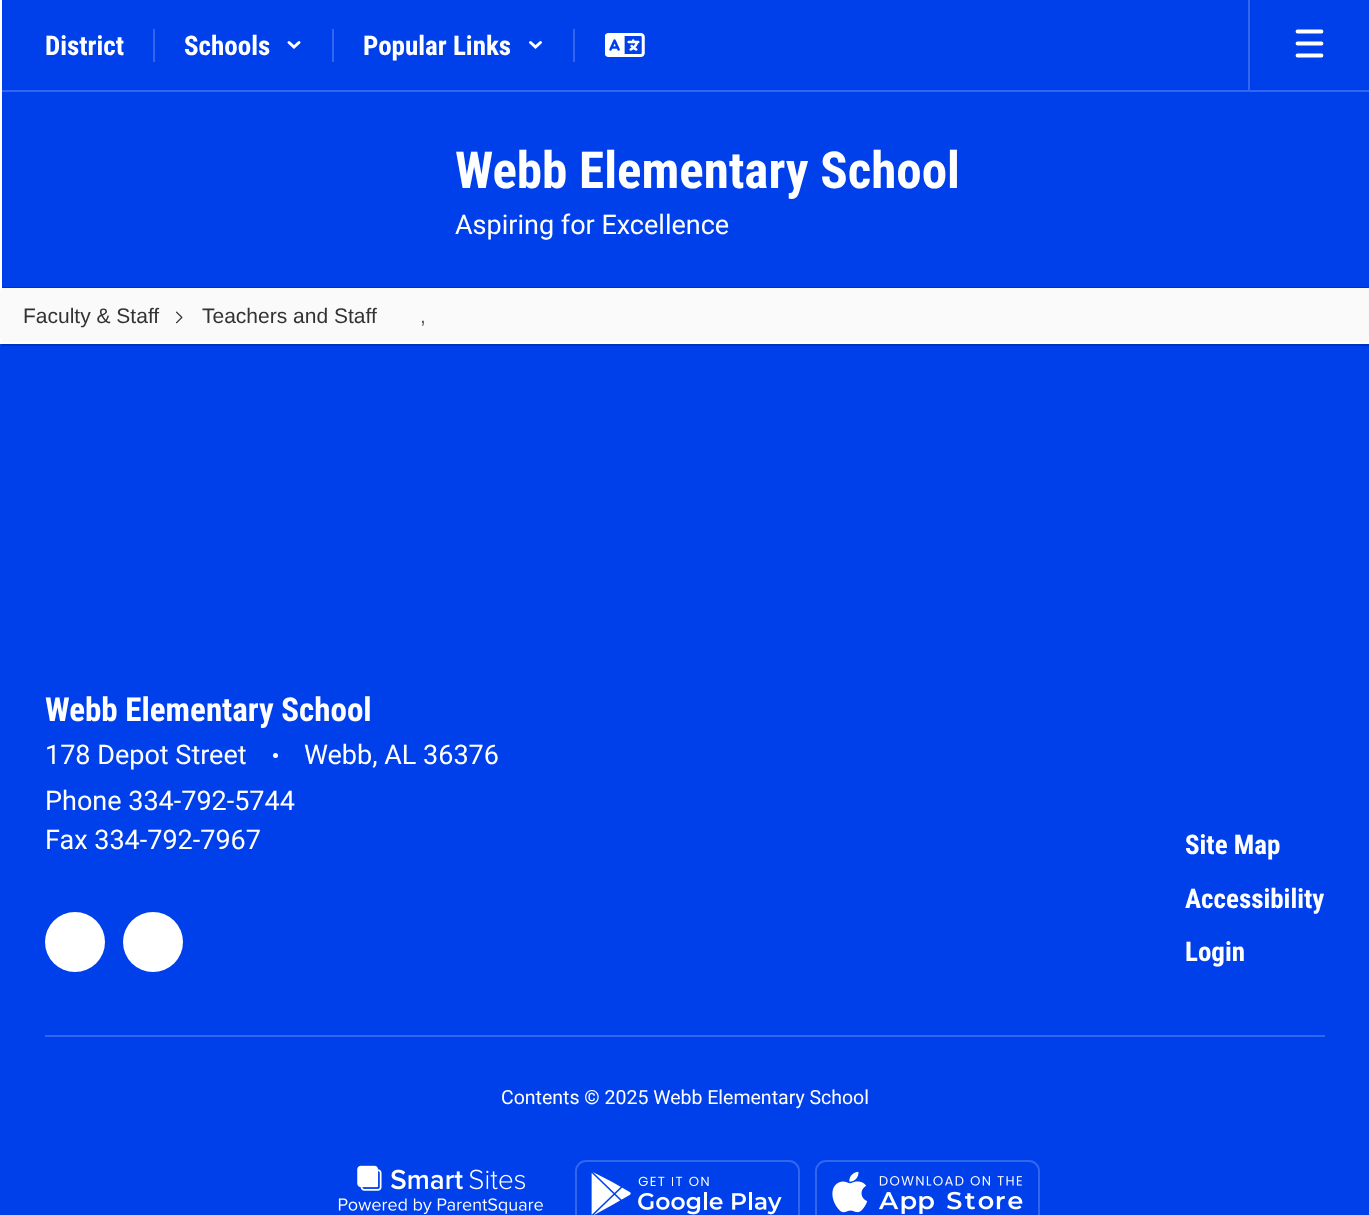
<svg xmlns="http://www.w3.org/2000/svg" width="1369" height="1215">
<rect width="100%" height="100%" fill="#fff"/>
<rect x="2" width="1367" height="287" fill="#0040eb"/>
<rect x="2" y="90" width="1367" height="2" fill="#3366ef"/>
<rect x="2" y="287" width="1367" height="1" fill="#0033bc"/>
<text x="45" y="55" style="font-family:Roboto Condensed;font-size:27px;font-weight:bold;fill:#fff">District</text>
<rect x="153" y="29" width="2" height="33" fill="#3366ef"/>
<text x="184" y="55" style="font-family:Roboto Condensed;font-size:27px;font-weight:bold;fill:#fff">Schools</text>
<path d="M289 42.5l5 4.5l5-4.5" fill="none" stroke="#fff" stroke-width="3" stroke-linecap="round"/>
<rect x="332" y="29" width="2" height="33" fill="#3366ef"/>
<text x="363" y="55" style="font-family:Roboto Condensed;font-size:27px;font-weight:bold;fill:#fff">Popular Links</text>
<path d="M530.5 42.5l5 4.5l5-4.5" fill="none" stroke="#fff" stroke-width="3" stroke-linecap="round"/>
<rect x="573" y="29" width="2" height="33" fill="#3366ef"/>
<image x="605" y="33" width="40" height="24" href="media/1.png"/>
<rect x="1248" width="2" height="90" fill="#3366ef"/>
<path d="M1297.5 31.5h24m-24 12h24m-24 12h24" fill="none" stroke="#fff" stroke-width="3.8" stroke-linecap="round"/>
<text x="455" y="188" style="font-family:Roboto Condensed;font-size:51px;font-weight:bold;fill:#fff">Webb Elementary School</text>
<text x="455" y="234" style="font-family:Roboto;font-size:27px;fill:#fff">Aspiring for Excellence</text>
<rect y="288" width="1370" height="54" rx="6" fill="#fafafa"/>
<rect x="2" y="288" width="1367" height="54" fill="#fafafa"/>
<text x="23" y="323" style="font-family:Liberation Sans;font-size:21px;fill:#333">Faculty &amp; Staff</text>
<image x="176" y="311" width="7" height="13" href="media/2.png"/>
<text x="202" y="323" style="font-family:Liberation Sans;font-size:21px;fill:#333">Teachers and Staff</text>
<text x="420" y="323" style="font-family:Liberation Sans;font-size:21px;fill:#636363">,</text>
<rect y="344" width="1369" height="871" fill="#0040eb"/>
<rect x="2" y="344" width="1367" height="2" fill="#0033bc"/>
<text x="45" y="721" style="font-family:Roboto Condensed;font-size:33px;font-weight:bold;fill:#fff">Webb Elementary School</text>
<text x="45" y="764" style="font-family:Roboto;font-size:27px;fill:#fff">178 Depot Street</text>
<circle cx="275.5" cy="755.5" r="2.5" fill="#fff"/>
<text x="304" y="764" style="font-family:Roboto;font-size:27px;fill:#fff">Webb, AL 36376</text>
<text x="45" y="810" style="font-family:Roboto;font-size:27px;fill:#fff">Phone 334-792-5744</text>
<text x="45" y="849" style="font-family:Roboto;font-size:27px;fill:#fff">Fax 334-792-7967</text>
<circle cx="75" cy="942" r="30" fill="#fff"/>
<circle cx="153" cy="942" r="30" fill="#fff"/>
<text x="1185" y="854" style="font-family:Roboto Condensed;font-size:27px;font-weight:bold;fill:#fff">Site Map</text>
<text x="1185" y="908" style="font-family:Roboto Condensed;font-size:27px;font-weight:bold;fill:#fff">Accessibility</text>
<text x="1185" y="961" style="font-family:Roboto Condensed;font-size:27px;font-weight:bold;fill:#fff">Login</text>
<rect x="45" y="1035" width="1280" height="2" fill="#3366ef"/>
<text x="501" y="1104" style="font-family:Roboto;font-size:19.5px;fill:#fff">Contents © 2025 Webb Elementary School</text>
<image x="338" y="1165" width="205" height="49" href="media/3.png"/>
<rect x="576" y="1161" width="223" height="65" rx="10" fill="none" stroke="#3366ef" stroke-width="2"/>
<image x="591" y="1172" width="191" height="43" href="media/4.png"/>
<rect x="816" y="1161" width="223" height="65" rx="10" fill="none" stroke="#3366ef" stroke-width="2"/>
<image x="832" y="1171" width="191" height="43" href="media/5.png"/>
</svg>
